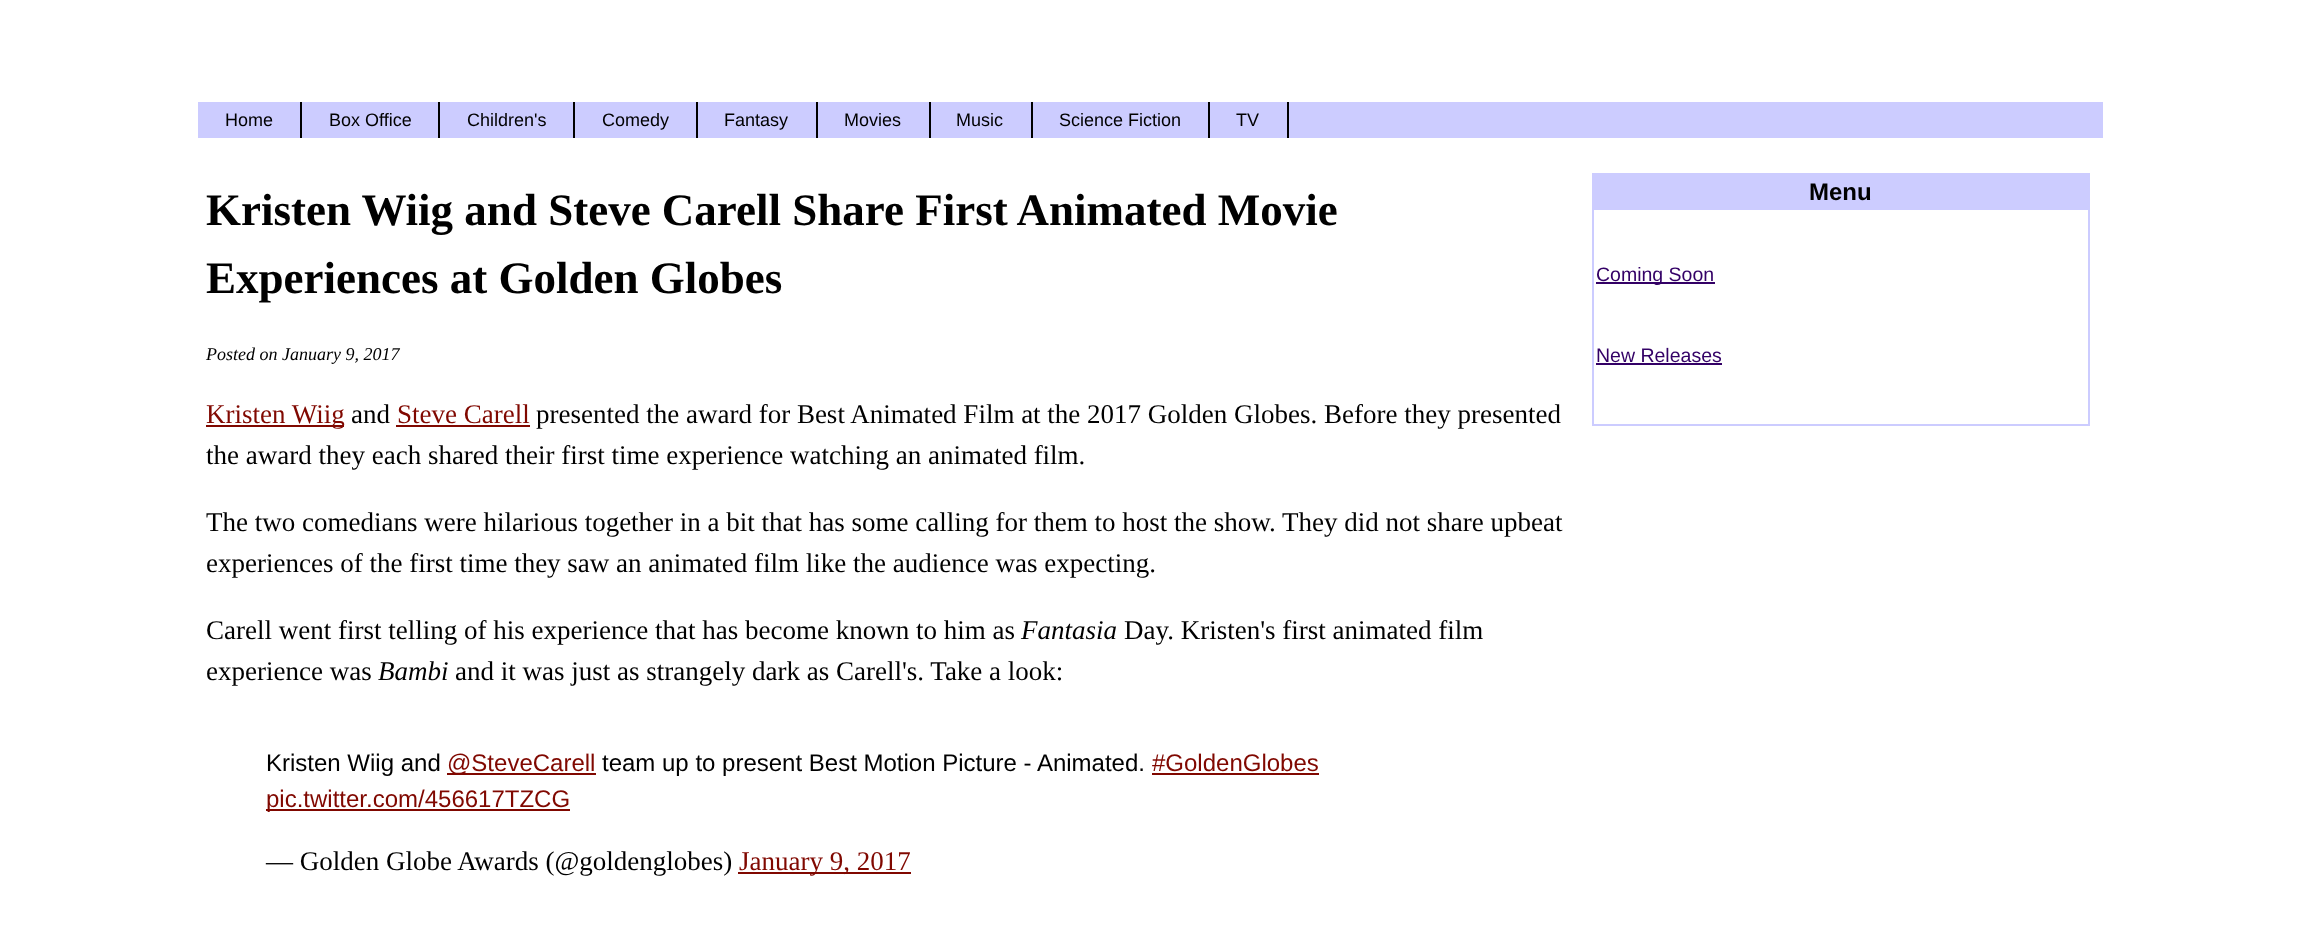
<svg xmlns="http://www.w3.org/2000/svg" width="2300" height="949">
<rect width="100%" height="100%" fill="#fff"/>
<rect x="198" y="102" width="1905" height="36" fill="#ccf"/>
<rect x="300" y="102" width="2" height="36" fill="#000"/>
<text x="225" y="126" style="font-family:Liberation Sans;font-size:18px;fill:#000">Home</text>
<rect x="438" y="102" width="2" height="36" fill="#000"/>
<text x="329" y="126" style="font-family:Liberation Sans;font-size:18px;fill:#000">Box Office</text>
<rect x="573" y="102" width="2" height="36" fill="#000"/>
<text x="467" y="126" style="font-family:Liberation Sans;font-size:18px;fill:#000">Children's</text>
<rect x="696" y="102" width="2" height="36" fill="#000"/>
<text x="602" y="126" style="font-family:Liberation Sans;font-size:18px;fill:#000">Comedy</text>
<rect x="816" y="102" width="2" height="36" fill="#000"/>
<text x="724" y="126" style="font-family:Liberation Sans;font-size:18px;fill:#000">Fantasy</text>
<rect x="929" y="102" width="2" height="36" fill="#000"/>
<text x="844" y="126" style="font-family:Liberation Sans;font-size:18px;fill:#000">Movies</text>
<rect x="1031" y="102" width="2" height="36" fill="#000"/>
<text x="956" y="126" style="font-family:Liberation Sans;font-size:18px;fill:#000">Music</text>
<rect x="1208" y="102" width="2" height="36" fill="#000"/>
<text x="1059" y="126" style="font-family:Liberation Sans;font-size:18px;fill:#000">Science Fiction</text>
<rect x="1287" y="102" width="2" height="36" fill="#000"/>
<text x="1236" y="126" style="font-family:Liberation Sans;font-size:18px;fill:#000">TV</text>
<text x="206" y="225" style="font-family:Liberation Serif;font-size:45px;font-weight:bold;fill:#000">Kristen Wiig and Steve Carell Share First Animated Movie</text>
<text x="206" y="293" style="font-family:Liberation Serif;font-size:45px;font-weight:bold;fill:#000">Experiences at Golden Globes</text>
<text x="206" y="360" style="font-family:Liberation Serif;font-size:18px;font-style:italic;fill:#000">Posted on January 9, 2017</text>
<rect x="206" y="425" width="138" height="2" fill="#800800"/>
<text x="206" y="423" style="font-family:Liberation Serif;font-size:27px;fill:#800800">Kristen Wiig</text>
<text x="351" y="423" style="font-family:Liberation Serif;font-size:27px;fill:#000">and</text>
<text x="397" y="423" style="font-family:Liberation Serif;font-size:27px;fill:#800800">Steve Carell</text>
<rect x="396" y="425" width="134" height="2" fill="#800800"/>
<text x="536" y="423" style="font-family:Liberation Serif;font-size:27px;fill:#000">presented the award for Best Animated Film at the 2017 Golden Globes. Before they presented</text>
<text x="206" y="464" style="font-family:Liberation Serif;font-size:27px;fill:#000">the award they each shared their first time experience watching an animated film.</text>
<text x="206" y="531" style="font-family:Liberation Serif;font-size:27px;fill:#000">The two comedians were hilarious together in a bit that has some calling for them to host the show. They did not share upbeat</text>
<text x="206" y="572" style="font-family:Liberation Serif;font-size:27px;fill:#000">experiences of the first time they saw an animated film like the audience was expecting.</text>
<text x="206" y="639" style="font-family:Liberation Serif;font-size:27px;fill:#000">Carell went first telling of his experience that has become known to him as</text>
<text x="1021" y="639" style="font-family:Liberation Serif;font-size:27px;font-style:italic;fill:#000">Fantasia</text>
<text x="1124" y="639" style="font-family:Liberation Serif;font-size:27px;fill:#000">Day. Kristen's first animated film</text>
<text x="206" y="680" style="font-family:Liberation Serif;font-size:27px;fill:#000">experience was</text>
<text x="378" y="680" style="font-family:Liberation Serif;font-size:27px;font-style:italic;fill:#000">Bambi</text>
<text x="455" y="680" style="font-family:Liberation Serif;font-size:27px;fill:#000">and it was just as strangely dark as Carell's. Take a look:</text>
<text x="266" y="771" style="font-family:Liberation Sans;font-size:24px;fill:#000">Kristen Wiig and</text>
<rect x="447" y="773" width="149" height="2" fill="#800800"/>
<text x="447" y="771" style="font-family:Liberation Sans;font-size:24px;fill:#800800">@SteveCarell</text>
<text x="602" y="771" style="font-family:Liberation Sans;font-size:24px;fill:#000">team up to present Best Motion Picture - Animated.</text>
<text x="1152" y="771" style="font-family:Liberation Sans;font-size:24px;fill:#800800">#GoldenGlobes</text>
<rect x="1152" y="773" width="167" height="2" fill="#800800"/>
<rect x="266" y="809" width="304" height="2" fill="#800800"/>
<text x="266" y="807" style="font-family:Liberation Sans;font-size:24px;fill:#800800">pic.twitter.com/456617TZCG</text>
<text x="266" y="870" style="font-family:Liberation Serif;font-size:27px;fill:#000">— Golden Globe Awards (@goldenglobes)</text>
<rect x="738" y="872" width="173" height="2" fill="#800800"/>
<text x="739" y="870" style="font-family:Liberation Serif;font-size:27px;fill:#800800">January 9, 2017</text>
<rect x="1593" y="174" width="496" height="251" fill="none" stroke="#ccf" stroke-width="2"/>
<rect x="1594" y="175" width="494" height="35" fill="#ccf"/>
<text x="1809" y="200" style="font-family:Liberation Sans;font-size:24px;font-weight:bold;fill:#000">Menu</text>
<rect x="1596" y="282" width="119" height="2" fill="#306"/>
<text x="1596" y="281" style="font-family:Liberation Sans;font-size:19.5px;fill:#306">Coming Soon</text>
<text x="1596" y="362" style="font-family:Liberation Sans;font-size:19.5px;fill:#306">New Releases</text>
<rect x="1596" y="363" width="126" height="2" fill="#306"/>
</svg>
